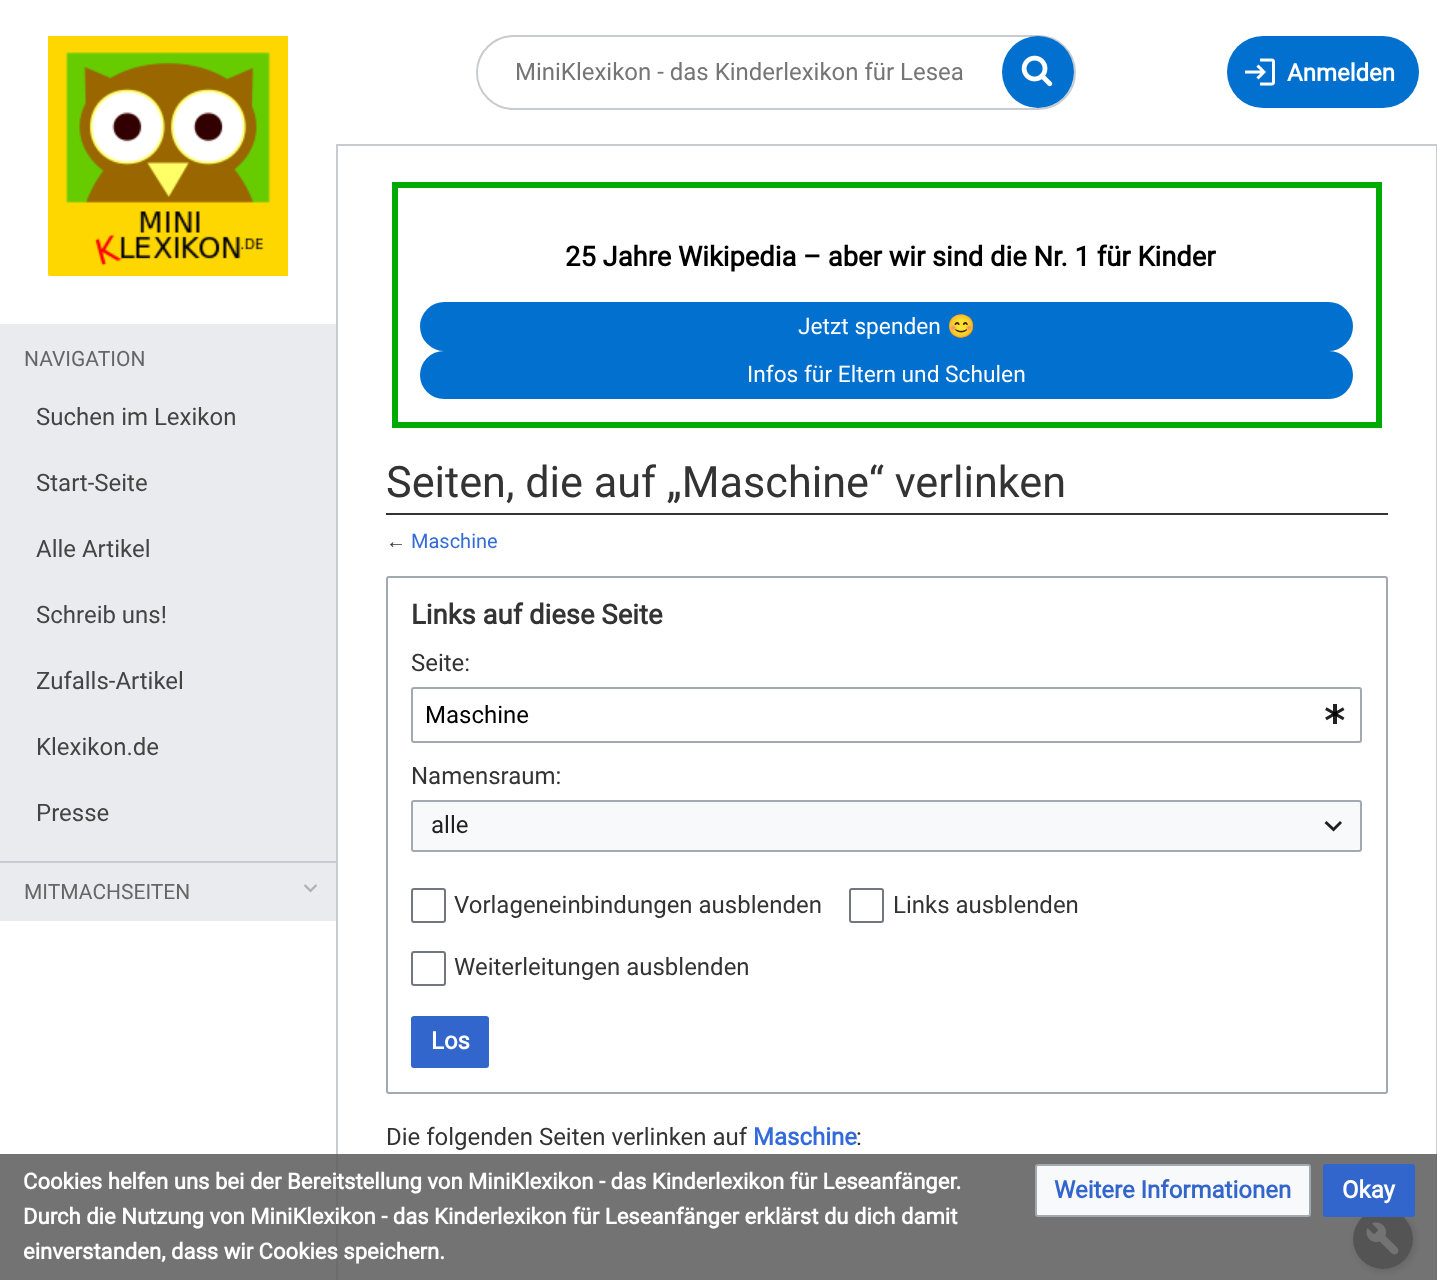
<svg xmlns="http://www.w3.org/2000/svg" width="1437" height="1280">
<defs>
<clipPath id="clip1"><path d="M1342 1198h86v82h-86zm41 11c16.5 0 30 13.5 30 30c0 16.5-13.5 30-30 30c-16.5 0-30-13.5-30-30c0-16.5 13.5-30 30-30z" clip-rule="evenodd"/></clipPath>
</defs>
<rect width="100%" height="100%" fill="#fff"/>
<image x="48" y="36" width="240" height="240" href="media/1.png"/>
<rect x="477" y="36" width="598" height="73" rx="36.5" fill="none" stroke="#c8ccd1" stroke-width="2"/>
<text x="515" y="80" style="font-family:Roboto;font-size:24px;fill:#757575">MiniKlexikon - das Kinderlexikon für Lesea</text>
<circle cx="1038" cy="72" r="36" fill="#0170ce"/>
<image x="1021" y="55" width="32" height="32" href="media/2.png"/>
<rect x="1227" y="36" width="192" height="72" rx="36" fill="#0170ce"/>
<image x="1245" y="58" width="30" height="28" href="media/3.png"/>
<text x="1287" y="81" style="font-family:Roboto;font-size:24px;font-weight:bold;fill:#fff">Anmelden</text>
<rect x="337" y="145" width="1099" height="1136" fill="none" stroke="#c8ccd1" stroke-width="2"/>
<rect x="1435" y="146" width="1" height="1134" fill="#fff"/>
<rect x="395" y="185" width="984" height="240" fill="none" stroke="#0a0" stroke-width="6"/>
<text x="565" y="266" style="font-family:Roboto;font-size:27.4px;font-weight:bold;fill:#000">25 Jahre Wikipedia – aber wir sind die Nr. 1 für Kinder</text>
<rect x="420" y="302" width="933" height="49" rx="24.5" fill="#0170ce"/>
<text x="798" y="334" style="font-family:Roboto;font-size:22.75px;fill:#fff">Jetzt spenden</text>
<text x="947" y="334" style="font-family:Noto Color Emoji;font-size:22.75px;fill:#fff">😊</text>
<rect x="420" y="351" width="933" height="48" rx="24" fill="#0170ce"/>
<text x="747" y="382" style="font-family:Roboto;font-size:22.75px;fill:#fff">Infos für Eltern und Schulen</text>
<rect x="386" y="513" width="1002" height="2" fill="#333"/>
<text x="386" y="497" style="font-family:Roboto;font-size:43.25px;fill:#333">Seiten, die auf „Maschine“ verlinken</text>
<text x="386" y="548" style="font-family:Liberation Sans;font-size:20px;fill:#333">←</text>
<text x="411" y="548" style="font-family:Roboto;font-size:20px;fill:#336bda">Maschine</text>
<rect x="387" y="577" width="1000" height="516" rx="2" fill="none" stroke="#a2a9b1" stroke-width="2"/>
<text x="411" y="624" style="font-family:Roboto;font-size:27.5px;font-weight:bold;fill:#333">Links auf diese Seite</text>
<text x="411" y="671" style="font-family:Roboto;font-size:24px;fill:#333">Seite:</text>
<rect x="412" y="688" width="949" height="54" rx="2" fill="none" stroke="#a2a9b1" stroke-width="2"/>
<text x="425" y="723" style="font-family:Roboto;font-size:24px;fill:#000">Maschine</text>
<image x="1325" y="704" width="20" height="20" href="media/4.png"/>
<text x="411" y="784" style="font-family:Roboto;font-size:24px;fill:#333">Namensraum:</text>
<rect x="411" y="800" width="951" height="52" fill="#f8f9fa"/>
<rect x="412" y="801" width="949" height="50" rx="2" fill="none" stroke="#a2a9b1" stroke-width="2"/>
<text x="431" y="833" style="font-family:Roboto;font-size:24px;fill:#202122">alle</text>
<path d="M1340 821l-6.5 6.5l-7-6.5l-2 2l9 8.5l8.5-8.5z" fill="#202021"/>
<rect x="412" y="889" width="33" height="33" rx="2" fill="none" stroke="#72777d" stroke-width="2"/>
<text x="454" y="913" style="font-family:Roboto;font-size:24px;fill:#333">Vorlageneinbindungen ausblenden</text>
<rect x="850" y="889" width="33" height="33" rx="2" fill="none" stroke="#72777d" stroke-width="2"/>
<text x="893" y="913" style="font-family:Roboto;font-size:24px;fill:#333">Links ausblenden</text>
<rect x="412" y="952" width="33" height="33" rx="2" fill="none" stroke="#72777d" stroke-width="2"/>
<text x="454" y="975" style="font-family:Roboto;font-size:24px;fill:#333">Weiterleitungen ausblenden</text>
<rect x="412" y="1017" width="76" height="50" rx="2" fill="#36c" stroke="#36c" stroke-width="2"/>
<text x="431" y="1049" style="font-family:Roboto;font-size:24px;font-weight:bold;fill:#fff">Los</text>
<text x="386" y="1145" style="font-family:Roboto;font-size:24px;fill:#333">Die folgenden Seiten verlinken auf</text>
<text x="753" y="1145" style="font-family:Roboto;font-size:24px;font-weight:bold;fill:#336bda">Maschine</text>
<text x="856" y="1145" style="font-family:Roboto;font-size:24px;fill:#333">:</text>
<g clip-path="url(#clip1)">
<rect x="1355" y="1211" width="60" height="60" rx="30" fill="#999" filter="blur(4px)"/>
</g>
<circle cx="1383" cy="1239" r="30" fill="#000000cc"/>
<image x="1366" y="1222" width="33" height="33" href="media/6.png"/>
<rect y="1154" width="1437" height="126" fill="#5a5a5ad9"/>
<text x="23" y="1189" style="font-family:Roboto;font-size:22.1px;font-weight:bold;fill:#fff">Cookies helfen uns bei der Bereitstellung von MiniKlexikon - das Kinderlexikon für Leseanfänger.</text>
<text x="23" y="1224" style="font-family:Roboto;font-size:22.1px;font-weight:bold;fill:#fff">Durch die Nutzung von MiniKlexikon - das Kinderlexikon für Leseanfänger erklärst du dich damit</text>
<text x="23" y="1259" style="font-family:Roboto;font-size:22.1px;font-weight:bold;fill:#fff">einverstanden, dass wir Cookies speichern.</text>
<rect x="1036" y="1165" width="274" height="51" rx="2" fill="#f8f9fa" stroke="#a2a9b1" stroke-width="2"/>
<text x="1054" y="1198" style="font-family:Roboto;font-size:24px;font-weight:bold;fill:#36c">Weitere Informationen</text>
<rect x="1324" y="1165" width="90" height="51" rx="2" fill="#36c" stroke="#36c" stroke-width="2"/>
<text x="1342" y="1198" style="font-family:Roboto;font-size:24px;font-weight:bold;fill:#fff">Okay</text>
<rect y="324" width="336" height="597" fill="#e9ebef"/>
<text x="24" y="366" style="font-family:Roboto;font-size:21px;fill:#666">NAVIGATION</text>
<text x="36" y="425" style="font-family:Roboto;font-size:24px;fill:#444">Suchen im Lexikon</text>
<text x="36" y="491" style="font-family:Roboto;font-size:24px;fill:#444">Start-Seite</text>
<text x="36" y="557" style="font-family:Roboto;font-size:24px;fill:#444">Alle Artikel</text>
<text x="36" y="623" style="font-family:Roboto;font-size:24px;fill:#444">Schreib uns!</text>
<text x="36" y="689" style="font-family:Roboto;font-size:24px;fill:#444">Zufalls-Artikel</text>
<text x="36" y="755" style="font-family:Roboto;font-size:24px;fill:#444">Klexikon.de</text>
<text x="36" y="821" style="font-family:Roboto;font-size:24px;fill:#444">Presse</text>
<rect y="861" width="336" height="2" fill="#c8ccd1"/>
<text x="24" y="899" style="font-family:Roboto;font-size:21px;fill:#666">MITMACHSEITEN</text>
<image x="304" y="884" width="13" height="9" href="media/5.png"/>
</svg>
